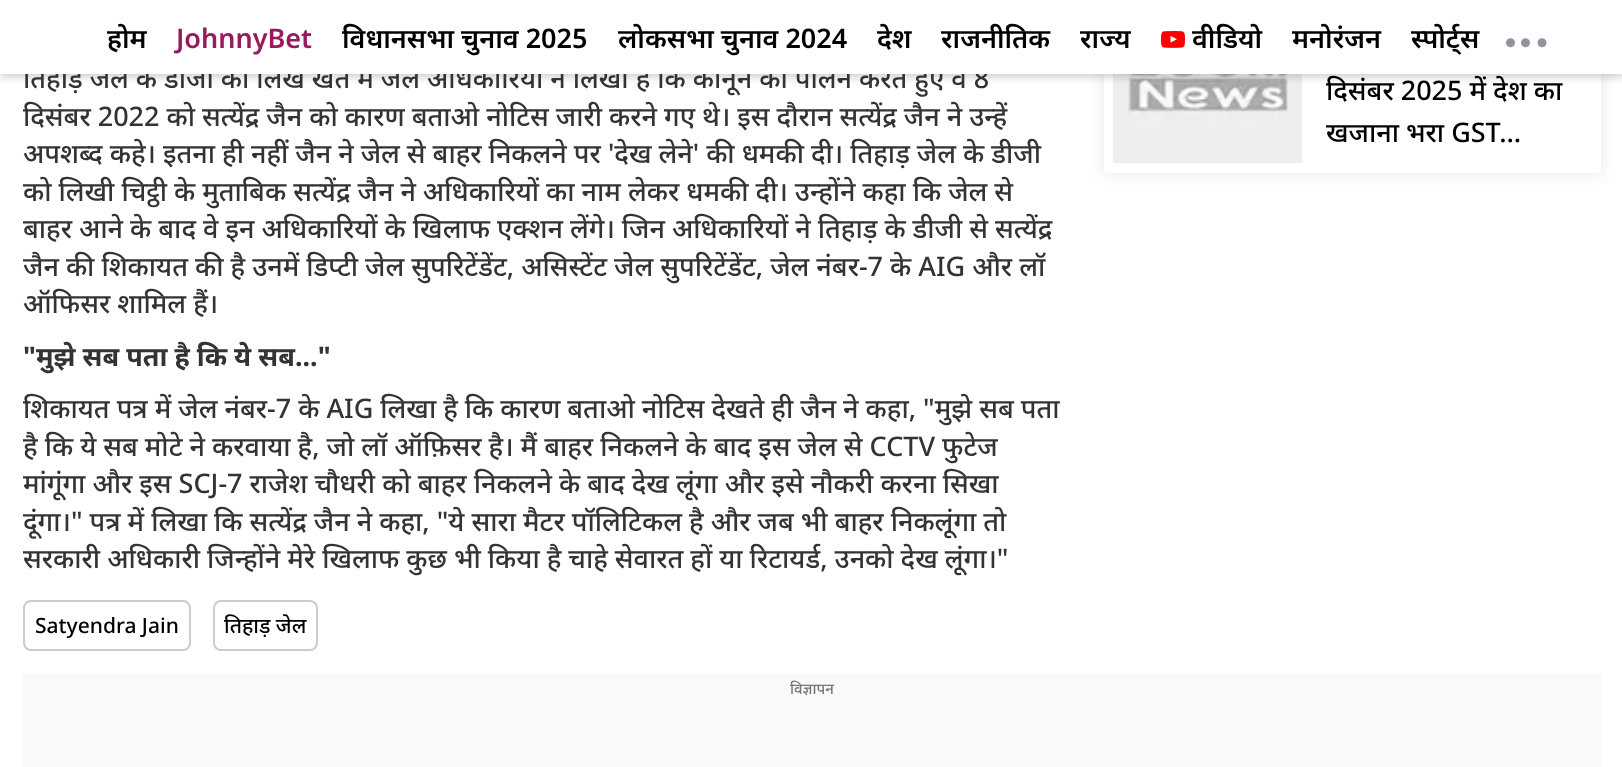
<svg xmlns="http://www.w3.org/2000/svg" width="1622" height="767">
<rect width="100%" height="100%" fill="#fff"/>
<rect x="1104" y="-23" width="497" height="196" fill="#0000001a" filter="blur(7.5px)"/>
<rect x="1104" y="74" width="497" height="99" fill="#fff"/>
<image x="1113" y="74" width="189" height="89" href="media/4.png"/>
<rect y="2" width="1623" height="75" fill="#5858584d" filter="blur(4px)"/>
<text x="23" y="88" style="font-family:Noto Sans;font-size:27px;font-weight:500;fill:#333">तिहाड़ जेल के डीजी को लिखे खत में जेल अधिकारियों ने लिखा है कि कानून का पालन करते हुए वे 8</text>
<rect width="1622" height="74" fill="#fff"/>
<text x="107" y="48" style="font-family:Noto Sans;font-size:27px;font-weight:600;fill:#000">होम</text>
<text x="176" y="48" style="font-family:Noto Sans;font-size:27px;font-weight:600;fill:#99195f">JohnnyBet</text>
<text x="342" y="48" style="font-family:Noto Sans;font-size:27px;font-weight:600;fill:#000">विधानसभा चुनाव 2025</text>
<text x="618" y="48" style="font-family:Noto Sans;font-size:27px;font-weight:600;fill:#000">लोकसभा चुनाव 2024</text>
<text x="877" y="48" style="font-family:Noto Sans;font-size:27px;font-weight:600;fill:#000">देश</text>
<text x="941" y="48" style="font-family:Noto Sans;font-size:27px;font-weight:600;fill:#000">राजनीतिक</text>
<text x="1080" y="48" style="font-family:Noto Sans;font-size:27px;font-weight:600;fill:#000">राज्य</text>
<image x="1161" y="31" width="24" height="17" href="media/1.png"/>
<text x="1192" y="48" style="font-family:Noto Sans;font-size:27px;font-weight:600;fill:#000">वीडियो</text>
<text x="1292" y="48" style="font-family:Noto Sans;font-size:27px;font-weight:600;fill:#000">मनोरंजन</text>
<text x="1411" y="48" style="font-family:Noto Sans;font-size:27px;font-weight:600;fill:#000">स्पोर्ट्स</text>
<image x="1506" y="38" width="9" height="10" href="media/2.png"/>
<image x="1521" y="38" width="9" height="10" href="media/2.png"/>
<image x="1537" y="38" width="10" height="10" href="media/3.png"/>
<text x="23" y="126" style="font-family:Noto Sans;font-size:27px;font-weight:500;fill:#333">दिसंबर 2022 को सत्येंद्र जैन को कारण बताओ नोटिस जारी करने गए थे। इस दौरान सत्येंद्र जैन ने उन्हें</text>
<text x="23" y="163" style="font-family:Noto Sans;font-size:27px;font-weight:500;fill:#333">अपशब्द कहे। इतना ही नहीं जैन ने जेल से बाहर निकलने पर 'देख लेने' की धमकी दी। तिहाड़ जेल के डीजी</text>
<text x="23" y="201" style="font-family:Noto Sans;font-size:27px;font-weight:500;fill:#333">को लिखी चिट्ठी के मुताबिक सत्येंद्र जैन ने अधिकारियों का नाम लेकर धमकी दी। उन्होंने कहा कि जेल से</text>
<text x="23" y="238" style="font-family:Noto Sans;font-size:27px;font-weight:500;fill:#333">बाहर आने के बाद वे इन अधिकारियों के खिलाफ एक्शन लेंगे। जिन अधिकारियों ने तिहाड़ के डीजी से सत्येंद्र</text>
<text x="23" y="276" style="font-family:Noto Sans;font-size:27px;font-weight:500;fill:#333">जैन की शिकायत की है उनमें डिप्टी जेल सुपरिटेंडेंट, असिस्टेंट जेल सुपरिटेंडेंट, जेल नंबर-7 के AIG और लॉ</text>
<text x="23" y="313" style="font-family:Noto Sans;font-size:27px;font-weight:500;fill:#333">ऑफिसर शामिल हैं।</text>
<text x="23" y="366" style="font-family:Noto Sans;font-size:27px;font-weight:bold;fill:#333">"मुझे सब पता है कि ये सब..."</text>
<text x="23" y="418" style="font-family:Noto Sans;font-size:27px;font-weight:500;fill:#333">शिकायत पत्र में जेल नंबर-7 के AIG लिखा है कि कारण बताओ नोटिस देखते ही जैन ने कहा, "मुझे सब पता</text>
<text x="23" y="456" style="font-family:Noto Sans;font-size:27px;font-weight:500;fill:#333">है कि ये सब मोटे ने करवाया है, जो लॉ ऑफ़िसर है। मैं बाहर निकलने के बाद इस जेल से CCTV फुटेज</text>
<text x="23" y="493" style="font-family:Noto Sans;font-size:27px;font-weight:500;fill:#333">मांगूंगा और इस SCJ-7 राजेश चौधरी को बाहर निकलने के बाद देख लूंगा और इसे नौकरी करना सिखा</text>
<text x="23" y="531" style="font-family:Noto Sans;font-size:27px;font-weight:500;fill:#333">दूंगा।" पत्र में लिखा कि सत्येंद्र जैन ने कहा, "ये सारा मैटर पॉलिटिकल है और जब भी बाहर निकलूंगा तो</text>
<text x="23" y="568" style="font-family:Noto Sans;font-size:27px;font-weight:500;fill:#333">सरकारी अधिकारी जिन्होंने मेरे खिलाफ कुछ भी किया है चाहे सेवारत हों या रिटायर्ड, उनको देख लूंगा।"</text>
<rect x="24" y="601" width="166" height="49" rx="7" fill="none" stroke="#ccc" stroke-width="2"/>
<text x="35" y="633" style="font-family:Noto Sans;font-size:21px;font-weight:500;fill:#000">Satyendra Jain</text>
<rect x="214" y="601" width="103" height="49" rx="7" fill="none" stroke="#ccc" stroke-width="2"/>
<text x="224" y="633" style="font-family:Noto Sans;font-size:21px;font-weight:500;fill:#000">तिहाड़ जेल</text>
<text x="1326" y="100" style="font-family:Noto Sans;font-size:27px;font-weight:500;fill:#000">दिसंबर 2025 में देश का</text>
<text x="1326" y="142" style="font-family:Noto Sans;font-size:27px;font-weight:500;fill:#000">खजाना भरा GST…</text>
<rect x="23" y="674" width="1578" height="93" fill="#f9f9f9"/>
<text x="790" y="694" style="font-family:Noto Sans;font-size:15px;font-weight:500;fill:#777">विज्ञापन</text>
</svg>
